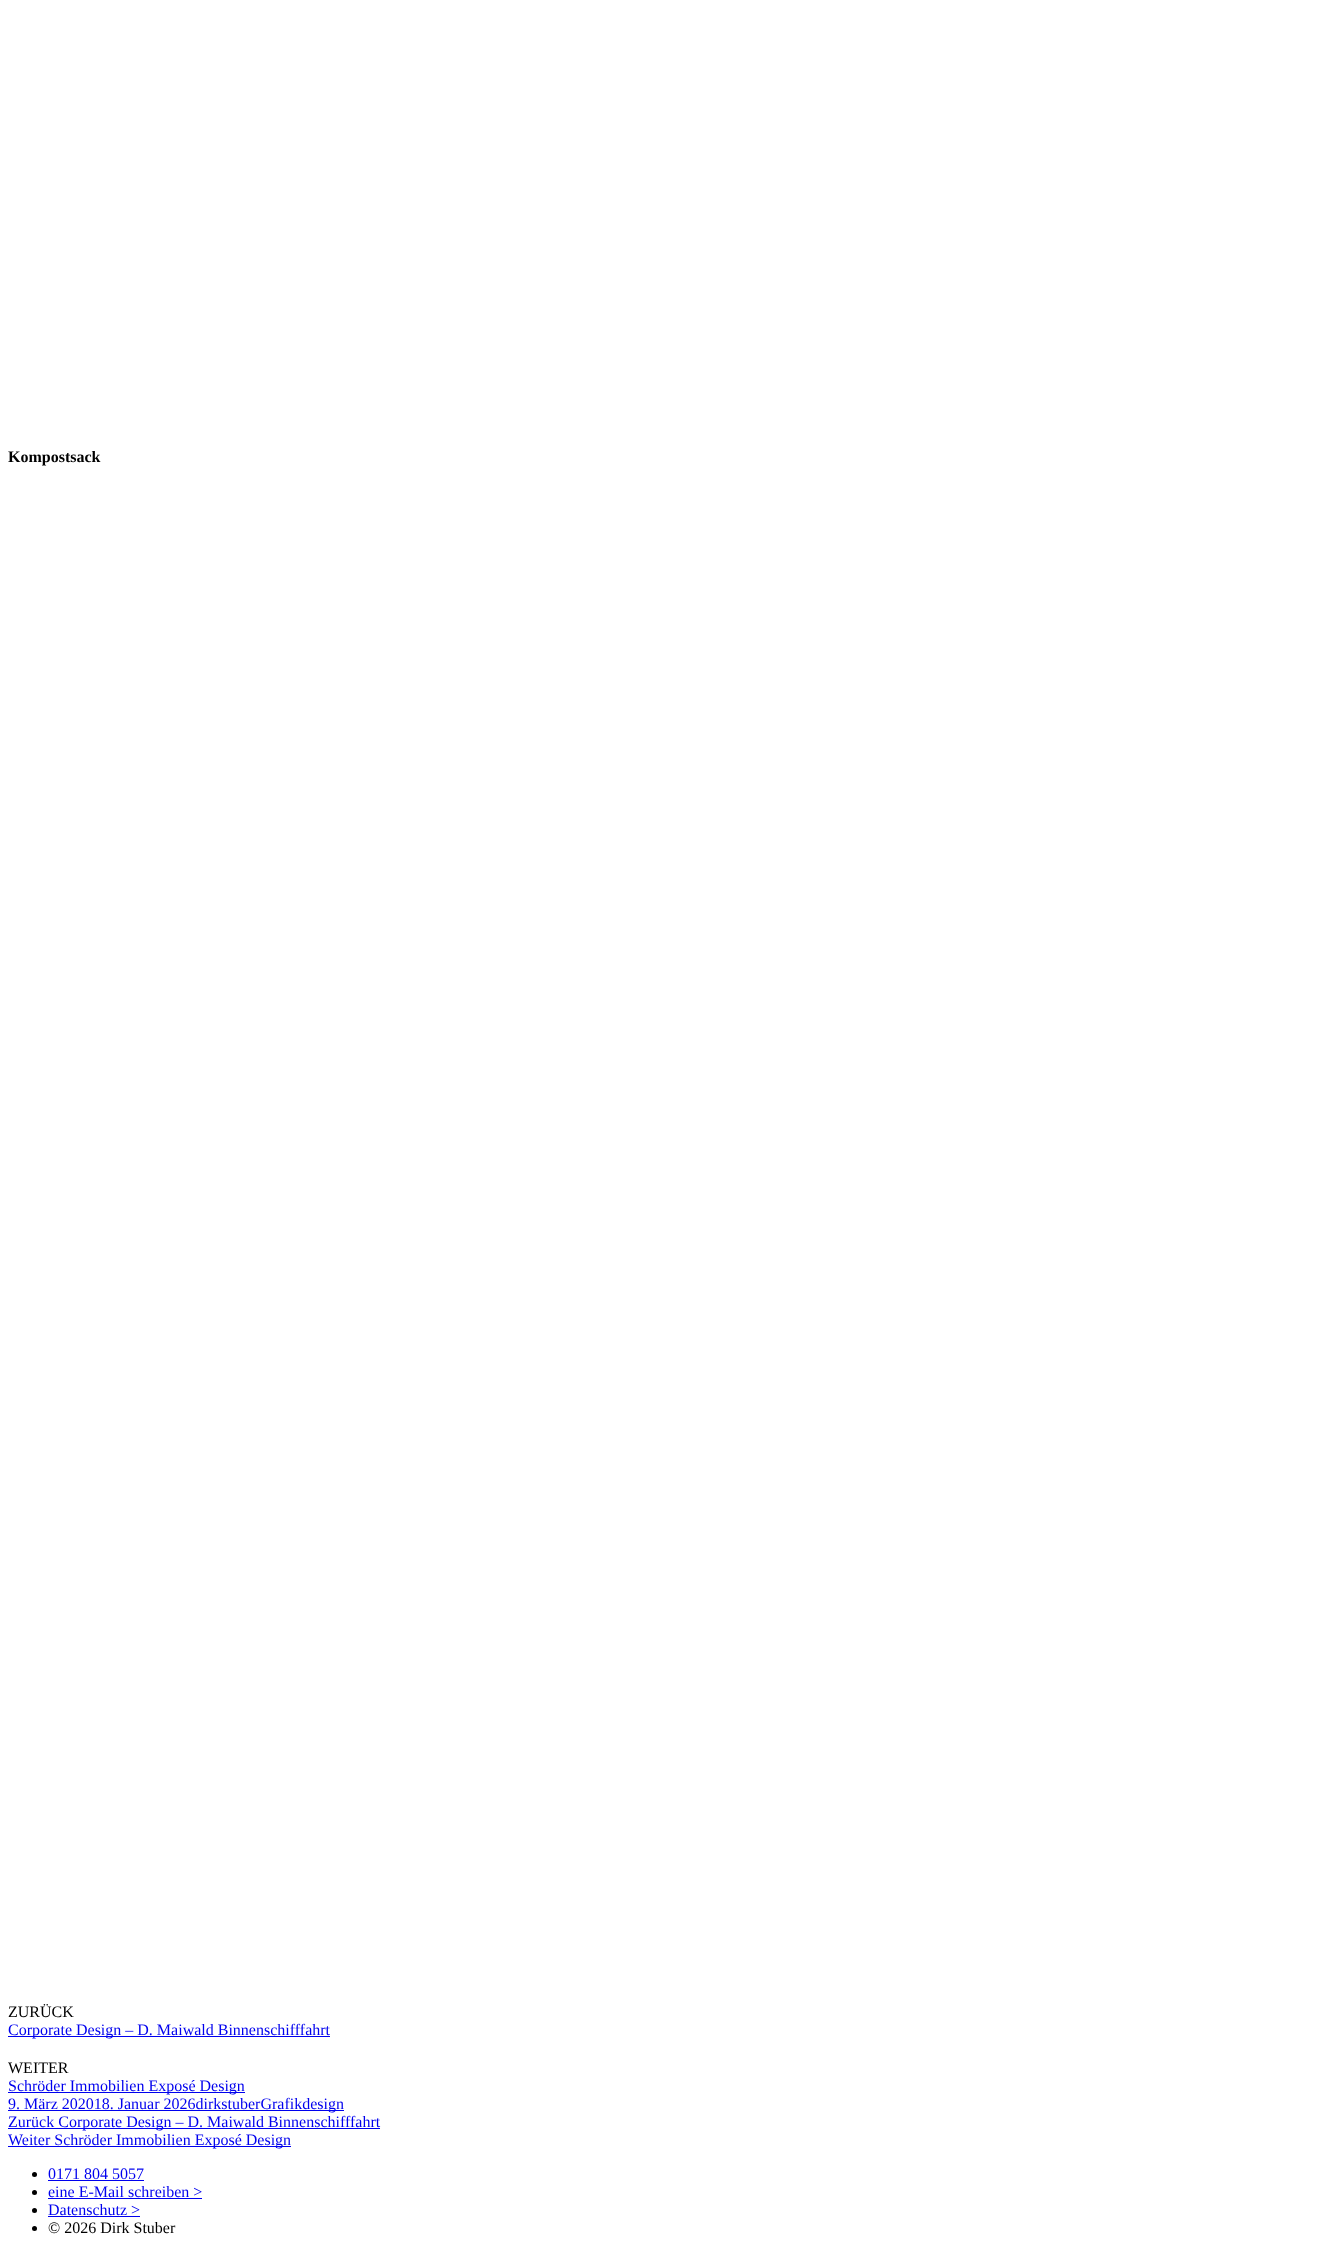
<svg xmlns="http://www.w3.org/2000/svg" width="1327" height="2253">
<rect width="100%" height="100%" fill="#fff"/>
<text x="8" y="462" style="font-family:Liberation Serif;font-size:16px;font-weight:bold;fill:#000">Kompostsack</text>
<text x="8" y="2017" style="font-family:Liberation Serif;font-size:16px;fill:#000">ZURÜCK</text>
<rect x="8" y="2036" width="322" height="1" fill="#00e"/>
<text x="8" y="2035" style="font-family:Liberation Serif;font-size:16px;fill:#00e">Corporate Design – D. Maiwald Binnenschifffahrt</text>
<text x="8" y="2073" style="font-family:Liberation Serif;font-size:16px;fill:#000">WEITER</text>
<rect x="8" y="2092" width="237" height="1" fill="#00e"/>
<text x="8" y="2091" style="font-family:Liberation Serif;font-size:16px;fill:#00e">Schröder Immobilien Exposé Design</text>
<rect x="8" y="2110" width="336" height="1" fill="#00e"/>
<text x="8" y="2109" style="font-family:Liberation Serif;font-size:16px;fill:#00e">9. März 202018. Januar 2026dirkstuberGrafikdesign</text>
<rect x="8" y="2128" width="372" height="1" fill="#00e"/>
<text x="8" y="2127" style="font-family:Liberation Serif;font-size:16px;fill:#00e">Zurück Corporate Design – D. Maiwald Binnenschifffahrt</text>
<rect x="8" y="2146" width="283" height="1" fill="#00e"/>
<text x="8" y="2145" style="font-family:Liberation Serif;font-size:16px;fill:#00e">Weiter Schröder Immobilien Exposé Design</text>
<circle cx="34.5" cy="2174.5" r="2.5" fill="#000"/>
<text x="48" y="2179" style="font-family:Liberation Serif;font-size:16px;fill:#00e">0171 804 5057</text>
<rect x="48" y="2180" width="96" height="1" fill="#00e"/>
<circle cx="34.5" cy="2192.5" r="2.5" fill="#000"/>
<text x="48" y="2197" style="font-family:Liberation Serif;font-size:16px;fill:#00e">eine E-Mail schreiben &gt;</text>
<rect x="48" y="2198" width="154" height="1" fill="#00e"/>
<circle cx="34.5" cy="2210.5" r="2.5" fill="#000"/>
<text x="48" y="2215" style="font-family:Liberation Serif;font-size:16px;fill:#00e">Datenschutz &gt;</text>
<rect x="48" y="2216" width="92" height="1" fill="#00e"/>
<circle cx="34.5" cy="2228.5" r="2.5" fill="#000"/>
<text x="48" y="2233" style="font-family:Liberation Serif;font-size:16px;fill:#000">© 2026 Dirk Stuber</text>
</svg>
